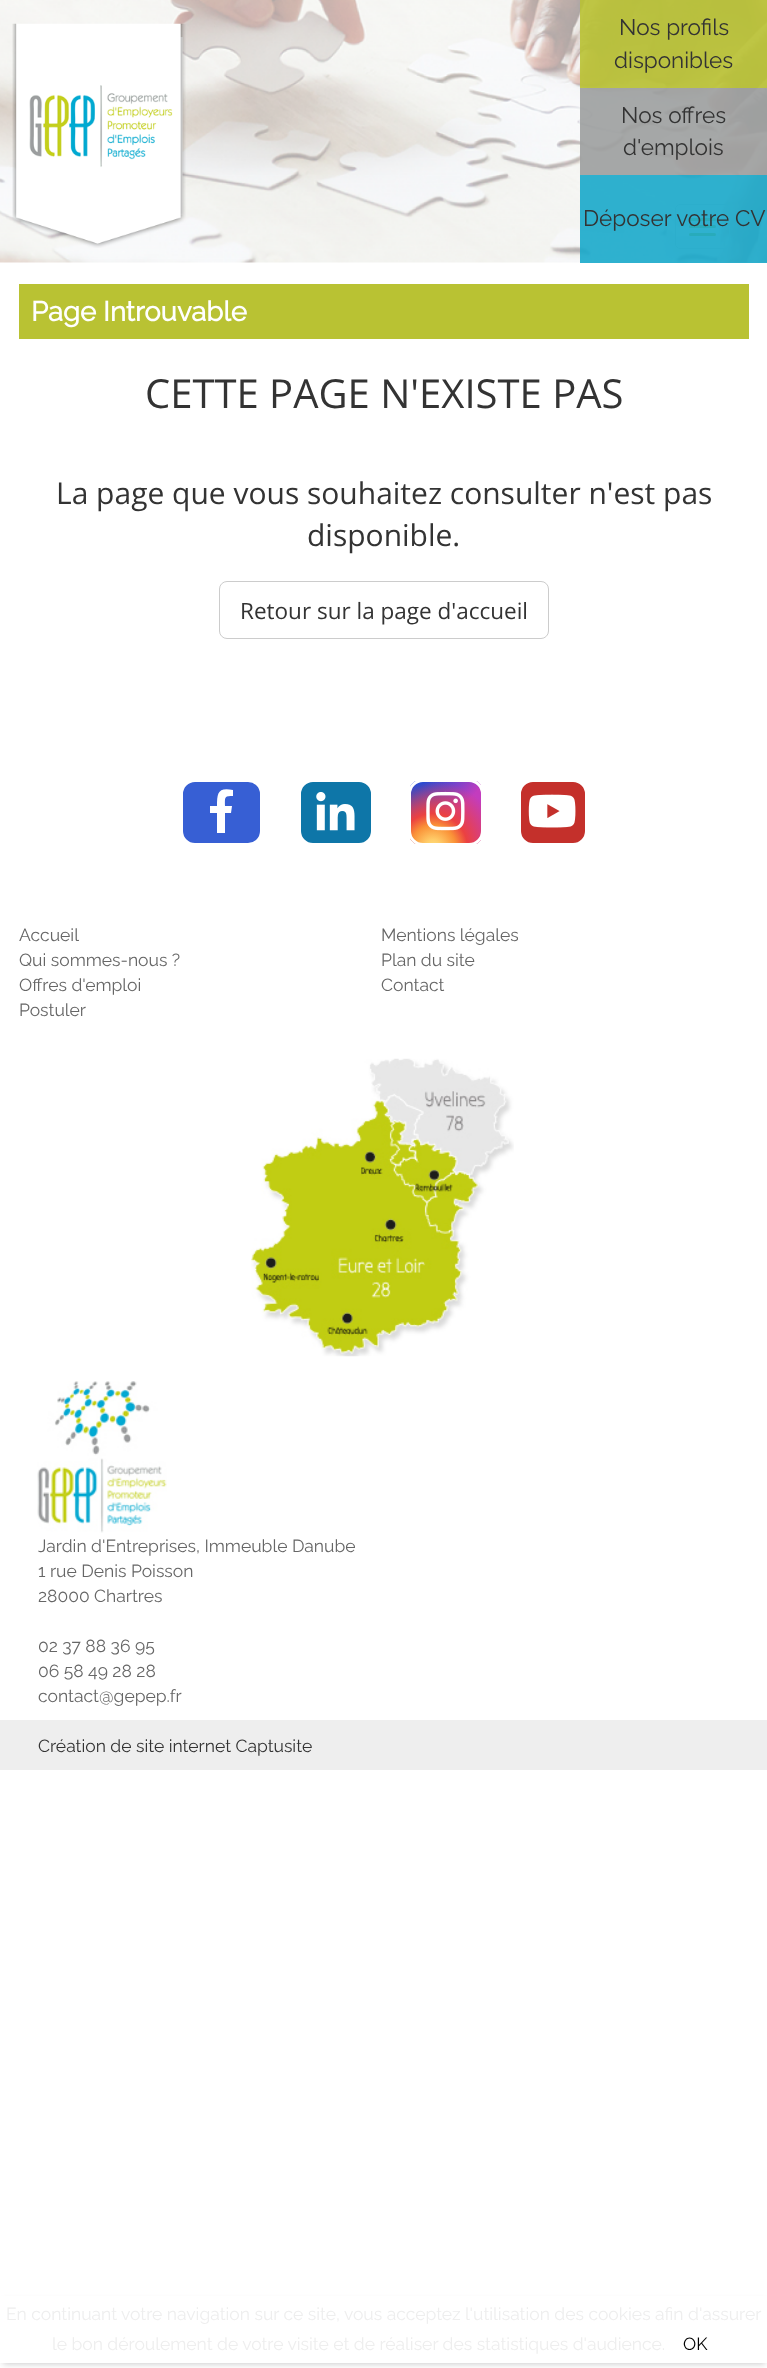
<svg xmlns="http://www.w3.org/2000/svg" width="767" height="2368">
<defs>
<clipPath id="clip1"><rect x="408" y="779" width="76" height="67" rx="15"/></clipPath>
<linearGradient id="g1" gradientUnits="userSpaceOnUse" x1="412" y1="779" x2="479" y2="846"><stop offset="0.12" stop-color="#234bd7"/><stop offset="0.58" stop-color="#c33cbe"/></linearGradient>
<radialGradient id="g2" gradientUnits="userSpaceOnUse" cx="433" cy="848" r="82"><stop offset="0" stop-color="#ffe17d"/><stop offset="0.1" stop-color="#ffcd69"/><stop offset="0.28" stop-color="#fa9137"/><stop offset="0.42" stop-color="#eb4141"/><stop offset="0.82" stop-color="#eb4141" stop-opacity="0"/></radialGradient>
</defs>
<rect width="100%" height="100%" fill="#fff"/>
<image x="0" y="0" width="767" height="263" href="media/1.png"/>
<image x="12" y="23" width="174" height="225" href="media/2.png"/>
<rect x="580" width="187" height="88" fill="#b9c233e6"/>
<text x="619" y="35" style="font-family:Raleway;font-size:22.5px;font-weight:100;fill:#333">Nos profils</text>
<text x="614" y="68" style="font-family:Raleway;font-size:22.5px;font-weight:100;fill:#333">disponibles</text>
<rect x="580" y="88" width="187" height="87" fill="#9c9e9fe6"/>
<text x="621" y="123" style="font-family:Raleway;font-size:22.5px;font-weight:100;fill:#333">Nos offres</text>
<text x="623" y="155" style="font-family:Raleway;font-size:22.5px;font-weight:100;fill:#333">d'emplois</text>
<rect x="675.5" y="204.5" width="54" height="44" rx="4.5" fill="none" stroke="#ddd"/>
<rect x="689" y="218" width="27" height="3" rx="1.5" fill="#b9c233"/>
<rect x="689" y="225" width="27" height="3" rx="1.5" fill="#b9c233"/>
<rect x="689" y="233" width="27" height="3" rx="1.5" fill="#b9c233"/>
<rect x="580" y="175" width="187" height="88" fill="#18a8cae6"/>
<text x="583" y="226" style="font-family:Raleway;font-size:22.5px;font-weight:100;fill:#333">Déposer votre CV</text>
<rect x="19" y="284" width="730" height="55" fill="#b9c233"/>
<text x="31" y="321" style="font-family:Raleway;font-size:27.5px;font-weight:bold;fill:#fff">Page Introuvable</text>
<text x="145" y="408" style="font-family:Open Sans;font-size:40px;fill:#333">CETTE PAGE N'EXISTE PAS</text>
<text x="56" y="504" style="font-family:Open Sans;font-size:30px;fill:#333">La page que vous souhaitez consulter n'est pas</text>
<text x="307" y="546" style="font-family:Open Sans;font-size:30px;fill:#333">disponible.</text>
<rect x="219.5" y="581.5" width="329" height="57" rx="7.5" fill="none" stroke="#ccc"/>
<text x="240" y="619" style="font-family:Open Sans;font-size:22.5px;fill:#333">Retour sur la page d'accueil</text>
<rect x="181.5" y="780.5" width="80" height="64" rx="13.5" fill="#375fd4" stroke="#fff" stroke-width="3"/>
<path d="M217 833v-20h-7v-7h7c0-13 1-19 16-16v6c-9 0-8 1-8 10h7l-1 7h-6v20z" fill="#fff"/>
<rect x="299.5" y="780.5" width="73" height="64" rx="13.5" fill="#0e76a8" stroke="#fff" stroke-width="3"/>
<image x="316" y="792" width="39" height="39" href="media/3.png"/>
<g clip-path="url(#clip1)">
<rect x="410" y="781" width="71" height="63" fill="url(#g1)"/>
<rect x="410" y="782" width="71" height="62" fill="url(#g2)"/>
</g>
<rect x="409.5" y="780.5" width="73" height="64" rx="13.5" fill="none" stroke="#fff" stroke-width="3"/>
<image x="426" y="791" width="39" height="40" href="media/4.png"/>
<rect x="519.5" y="780.5" width="67" height="64" rx="13.5" fill="#c4302b" stroke="#fff" stroke-width="3"/>
<image x="528" y="794" width="48" height="34" href="media/5.png"/>
<text x="19" y="941" style="font-family:Raleway;font-size:17.5px;font-weight:100;fill:#666">Accueil</text>
<text x="381" y="941" style="font-family:Raleway;font-size:17.5px;font-weight:100;fill:#666">Mentions légales</text>
<text x="19" y="966" style="font-family:Raleway;font-size:17.5px;font-weight:100;fill:#666">Qui sommes-nous ?</text>
<text x="381" y="966" style="font-family:Raleway;font-size:17.5px;font-weight:100;fill:#666">Plan du site</text>
<text x="19" y="991" style="font-family:Raleway;font-size:17.5px;font-weight:100;fill:#666">Offres d'emploi</text>
<text x="381" y="991" style="font-family:Raleway;font-size:17.5px;font-weight:100;fill:#666">Contact</text>
<text x="19" y="1016" style="font-family:Raleway;font-size:17.5px;font-weight:100;fill:#666">Postuler</text>
<image x="251" y="1058" width="263" height="299" href="media/6.png"/>
<image x="37" y="1381" width="130" height="152" href="media/7.png"/>
<text x="38" y="1552" style="font-family:Raleway;font-size:17.5px;font-weight:100;fill:#666">Jardin d'Entreprises, Immeuble Danube</text>
<text x="38" y="1577" style="font-family:Raleway;font-size:17.5px;font-weight:100;fill:#666">1 rue Denis Poisson</text>
<text x="38" y="1602" style="font-family:Raleway;font-size:17.5px;font-weight:100;fill:#666">28000 Chartres</text>
<text x="38" y="1652" style="font-family:Raleway;font-size:17.5px;font-weight:100;fill:#666">02 37 88 36 95</text>
<text x="38" y="1677" style="font-family:Raleway;font-size:17.5px;font-weight:100;fill:#666">06 58 49 28 28</text>
<text x="38" y="1702" style="font-family:Raleway;font-size:17.5px;font-weight:100;fill:#666">contact@gepep.fr</text>
<rect y="1720" width="767" height="50" fill="#eee"/>
<text x="38" y="1752" style="font-family:Raleway;font-size:17.5px;font-weight:100;fill:#333">Création de site internet Captusite</text>
<rect x="3" y="2301" width="762" height="63" fill="#00000033" filter="blur(3px)"/>
<rect y="2296" width="767" height="67" fill="#fff"/>
<text x="6" y="2320" style="font-family:Raleway;font-size:17.5px;font-weight:100;fill:#eee">En continuant votre navigation sur ce site, vous acceptez l'utilisation des cookies afin d'assurer</text>
<text x="52" y="2350" style="font-family:Raleway;font-size:17.5px;font-weight:100;fill:#eee">le bon déroulement de votre visite et de réaliser des statistiques d'audience.</text>
<text x="683" y="2350" style="font-family:Raleway;font-size:17.5px;font-weight:100;fill:#000">OK</text>
</svg>
